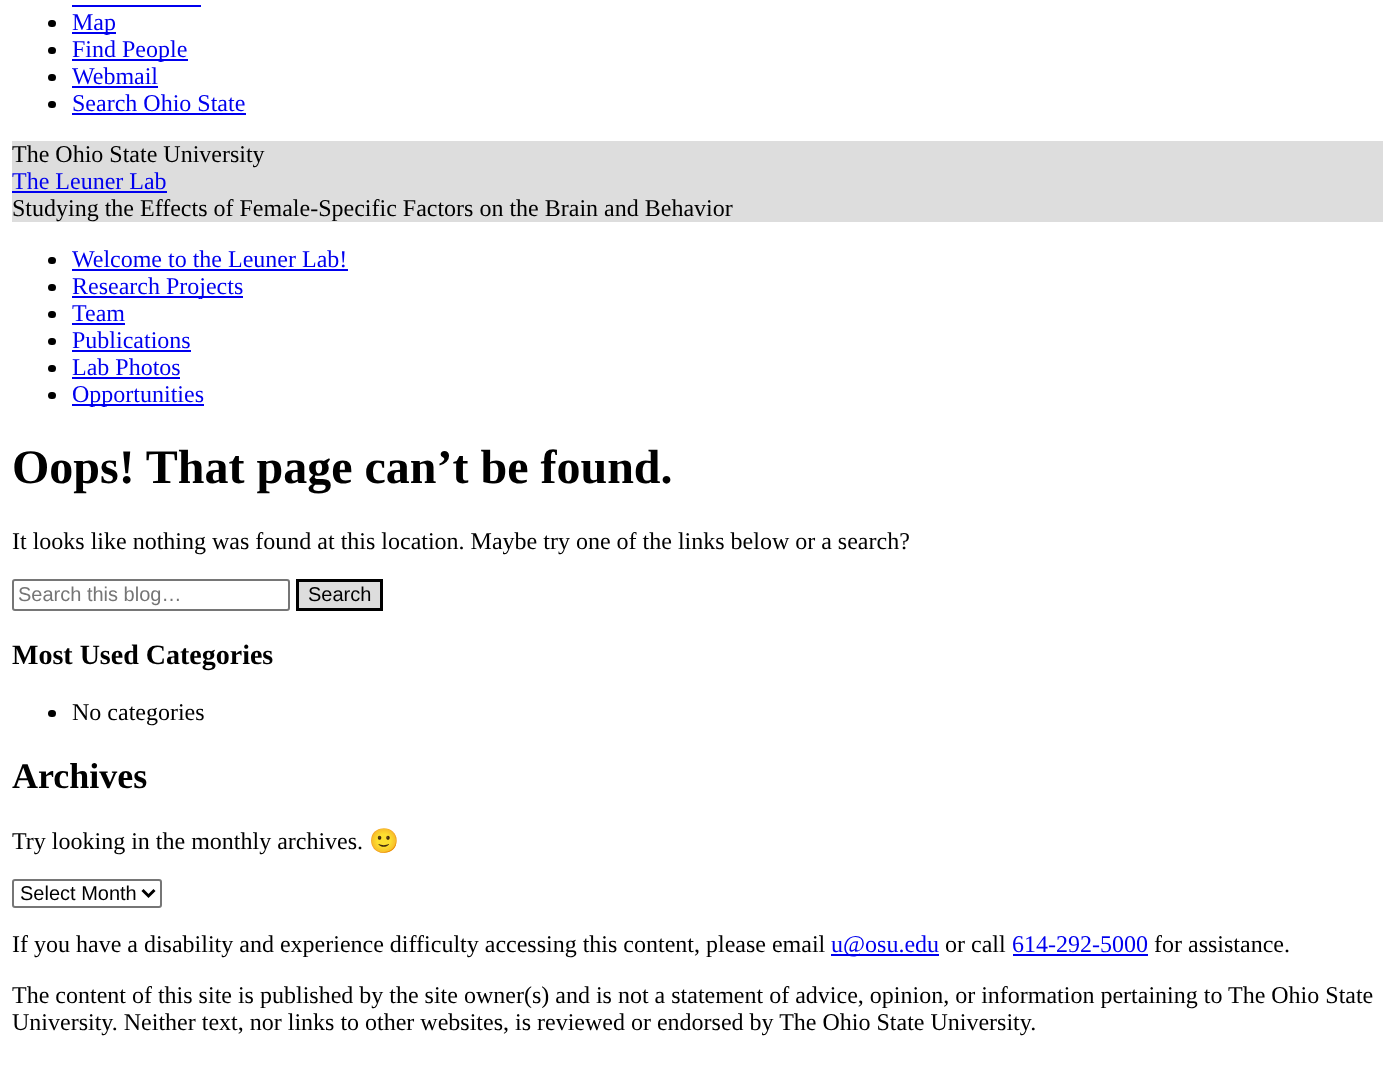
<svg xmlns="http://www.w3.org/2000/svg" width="1395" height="1072">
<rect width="100%" height="100%" fill="#fff"/>
<rect x="72" y="5" width="129" height="2" fill="#00e"/>
<rect x="48" y="20" width="8" height="7" rx="3.5" fill="#000"/>
<rect x="72" y="32" width="44" height="2" fill="#00e"/>
<text x="72" y="30" style="font-family:Liberation Serif;font-size:24px;fill:#00e">Map</text>
<rect x="48" y="47" width="8" height="7" rx="3.5" fill="#000"/>
<rect x="72" y="59" width="116" height="2" fill="#00e"/>
<text x="72" y="57" style="font-family:Liberation Serif;font-size:24px;fill:#00e">Find People</text>
<rect x="48" y="74" width="8" height="7" rx="3.5" fill="#000"/>
<text x="72" y="84" style="font-family:Liberation Serif;font-size:24px;fill:#00e">Webmail</text>
<rect x="72" y="86" width="86" height="2" fill="#00e"/>
<rect x="48" y="101" width="8" height="7" rx="3.5" fill="#000"/>
<text x="72" y="111" style="font-family:Liberation Serif;font-size:24px;fill:#00e">Search Ohio State</text>
<rect x="72" y="113" width="174" height="2" fill="#00e"/>
<rect x="12" y="141" width="1371" height="81" fill="#ddd"/>
<text x="12" y="162" style="font-family:Liberation Serif;font-size:24px;fill:#000">The Ohio State University</text>
<text x="12" y="189" style="font-family:Liberation Serif;font-size:24px;fill:#00e">The Leuner Lab</text>
<rect x="12" y="191" width="155" height="2" fill="#00e"/>
<text x="12" y="216" style="font-family:Liberation Serif;font-size:24px;fill:#000">Studying the Effects of Female-Specific Factors on the Brain and Behavior</text>
<rect x="48" y="257" width="8" height="7" rx="3.5" fill="#000"/>
<text x="72" y="267" style="font-family:Liberation Serif;font-size:24px;fill:#00e">Welcome to the Leuner Lab!</text>
<rect x="72" y="269" width="276" height="2" fill="#00e"/>
<rect x="48" y="284" width="8" height="7" rx="3.5" fill="#000"/>
<rect x="72" y="296" width="171" height="2" fill="#00e"/>
<text x="72" y="294" style="font-family:Liberation Serif;font-size:24px;fill:#00e">Research Projects</text>
<rect x="48" y="311" width="8" height="7" rx="3.5" fill="#000"/>
<text x="72" y="321" style="font-family:Liberation Serif;font-size:24px;fill:#00e">Team</text>
<rect x="72" y="323" width="53" height="2" fill="#00e"/>
<rect x="48" y="338" width="8" height="7" rx="3.5" fill="#000"/>
<text x="72" y="348" style="font-family:Liberation Serif;font-size:24px;fill:#00e">Publications</text>
<rect x="72" y="350" width="119" height="2" fill="#00e"/>
<rect x="48" y="365" width="8" height="7" rx="3.5" fill="#000"/>
<text x="72" y="375" style="font-family:Liberation Serif;font-size:24px;fill:#00e">Lab Photos</text>
<rect x="72" y="377" width="108" height="2" fill="#00e"/>
<rect x="48" y="392" width="8" height="7" rx="3.5" fill="#000"/>
<rect x="72" y="404" width="132" height="2" fill="#00e"/>
<text x="72" y="402" style="font-family:Liberation Serif;font-size:24px;fill:#00e">Opportunities</text>
<text x="12" y="483" style="font-family:Liberation Serif;font-size:48px;font-weight:bold;fill:#000">Oops! That page can’t be found.</text>
<text x="12" y="549" style="font-family:Liberation Serif;font-size:24px;fill:#000">It looks like nothing was found at this location. Maybe try one of the links below or a search?</text>
<rect x="13" y="580" width="276" height="30" rx="2" fill="none" stroke="#767676" stroke-width="2"/>
<text x="18" y="601" style="font-family:Liberation Sans;font-size:20px;fill:#757575">Search this blog…</text>
<rect x="297.5" y="580.5" width="84" height="29" fill="#ddd" stroke="#000" stroke-width="3"/>
<text x="308" y="601" style="font-family:Liberation Sans;font-size:20px;fill:#000">Search</text>
<text x="12" y="664" style="font-family:Liberation Serif;font-size:28px;font-weight:bold;fill:#000">Most Used Categories</text>
<rect x="48" y="710" width="8" height="7" rx="3.5" fill="#000"/>
<text x="72" y="720" style="font-family:Liberation Serif;font-size:24px;fill:#000">No categories</text>
<text x="12" y="788" style="font-family:Liberation Serif;font-size:36px;font-weight:bold;fill:#000">Archives</text>
<text x="12" y="849" style="font-family:Liberation Serif;font-size:24px;fill:#000">Try looking in the monthly archives.</text>
<text x="369" y="849" style="font-family:Noto Color Emoji;font-size:24px;fill:#000">🙂</text>
<rect x="13" y="880" width="148" height="27" rx="2" fill="none" stroke="#767676" stroke-width="2"/>
<path d="M142.5 890l6 6l6-6" fill="none" stroke="#000" stroke-width="3"/>
<text x="20" y="900" style="font-family:Liberation Sans;font-size:20px;fill:#000">Select Month</text>
<text x="12" y="952" style="font-family:Liberation Serif;font-size:24px;fill:#000">If you have a disability and experience difficulty accessing this content, please email</text>
<rect x="831" y="954" width="108" height="2" fill="#00e"/>
<text x="831" y="952" style="font-family:Liberation Serif;font-size:24px;fill:#00e">u@osu.edu</text>
<text x="945" y="952" style="font-family:Liberation Serif;font-size:24px;fill:#000">or call</text>
<text x="1012" y="952" style="font-family:Liberation Serif;font-size:24px;fill:#00e">614-292-5000</text>
<rect x="1013" y="954" width="135" height="2" fill="#00e"/>
<text x="1154" y="952" style="font-family:Liberation Serif;font-size:24px;fill:#000">for assistance.</text>
<text x="12" y="1003" style="font-family:Liberation Serif;font-size:24px;fill:#000">The content of this site is published by the site owner(s) and is not a statement of advice, opinion, or information pertaining to The Ohio State</text>
<text x="12" y="1030" style="font-family:Liberation Serif;font-size:24px;fill:#000">University. Neither text, nor links to other websites, is reviewed or endorsed by The Ohio State University.</text>
</svg>
